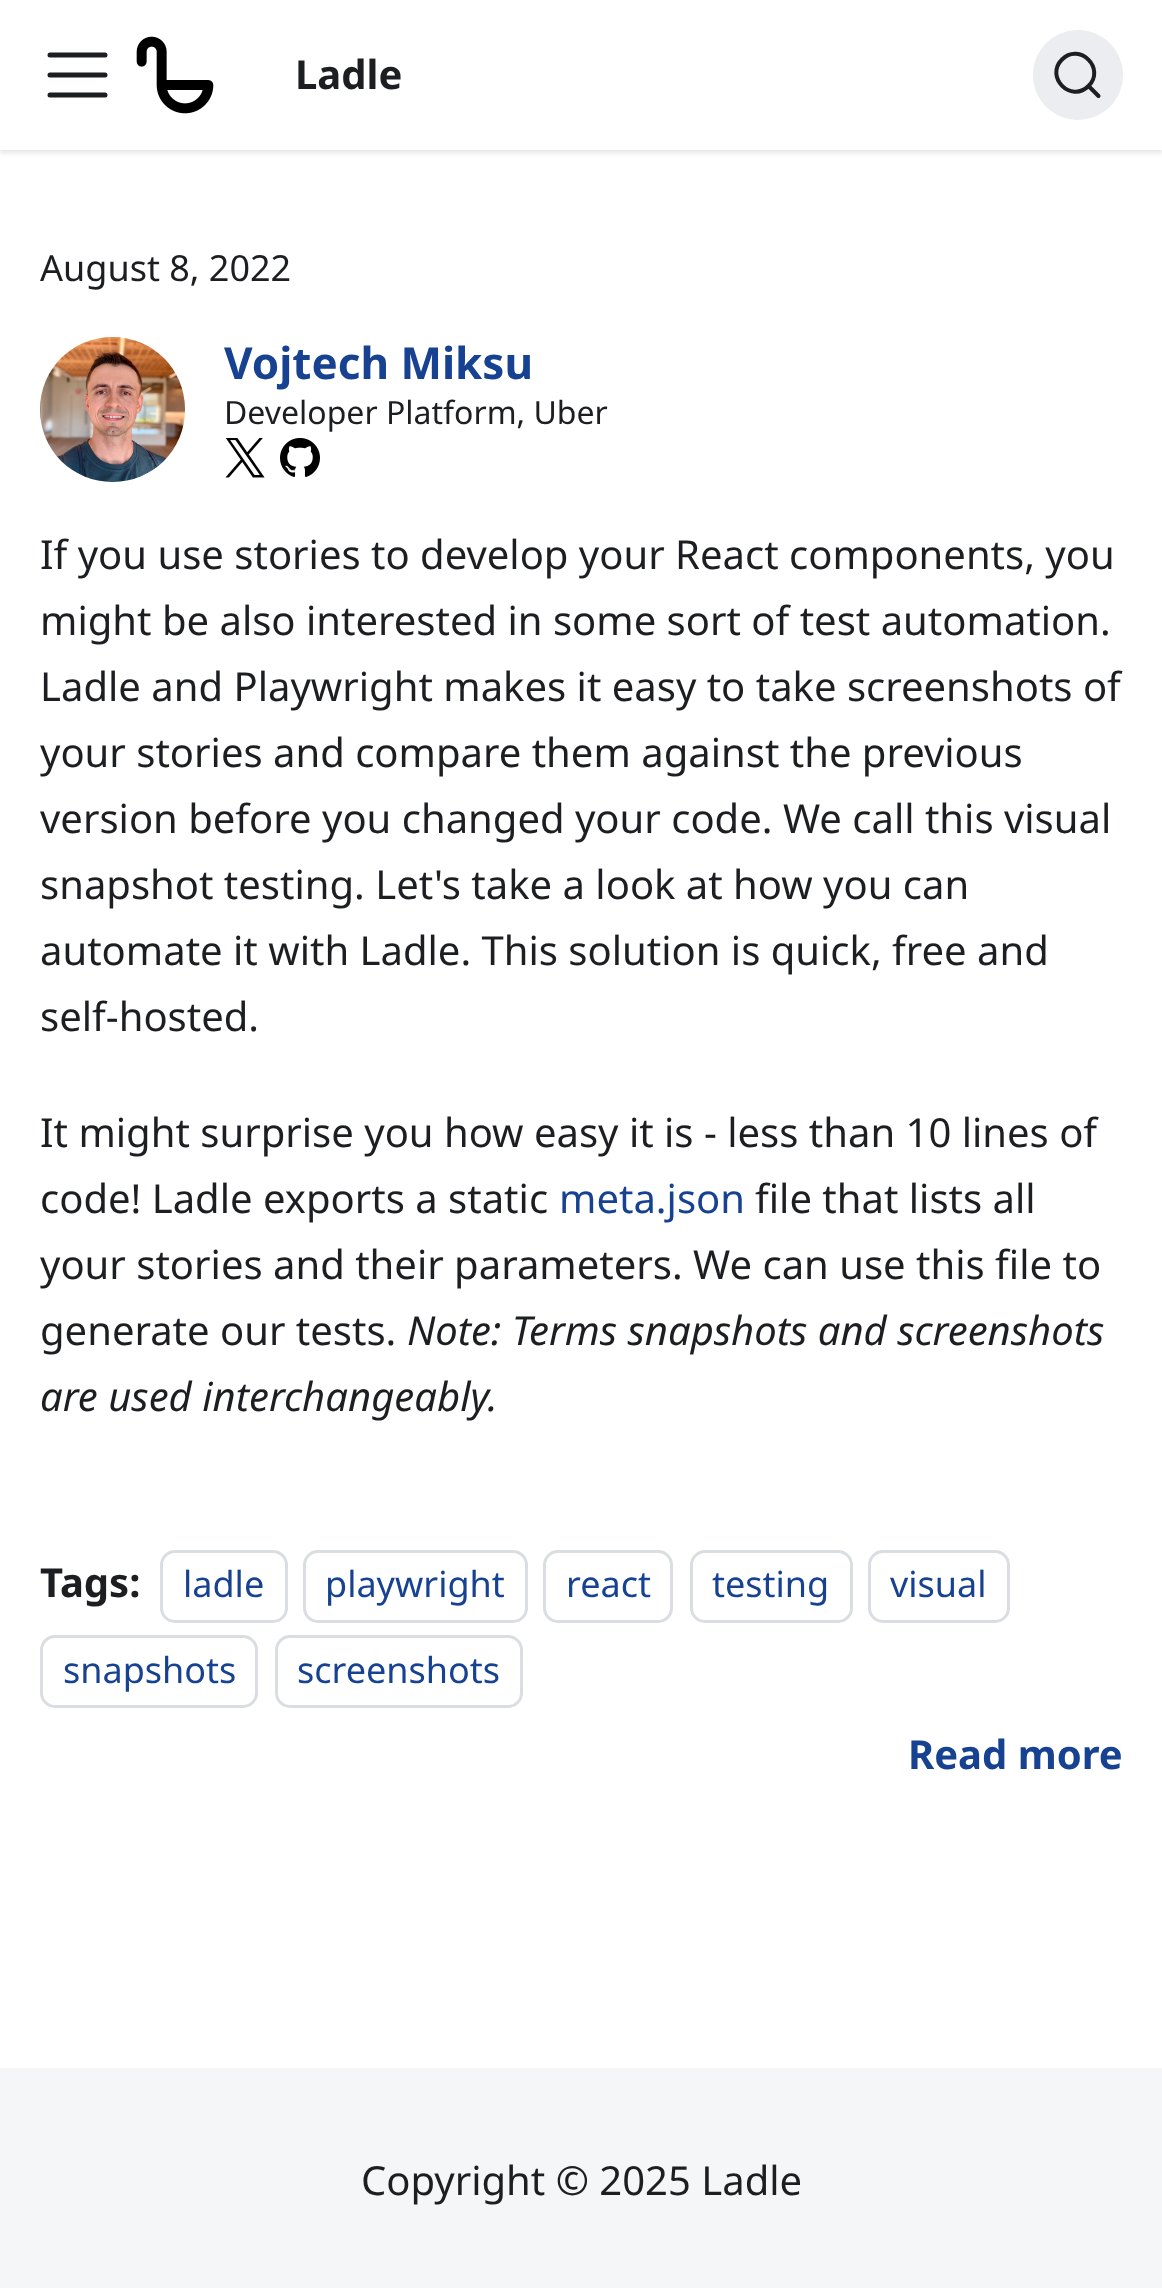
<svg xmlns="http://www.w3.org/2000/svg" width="1162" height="2288">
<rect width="100%" height="100%" fill="#fff"/>
<rect y="3" width="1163" height="150" fill="#0000001a" filter="blur(2.5px)"/>
<rect width="1162" height="150" fill="#fff"/>
<path d="M50 55h55m-55 20h55m-55 20h55" fill="none" stroke="#1c1e21" stroke-width="5" stroke-linecap="round"/>
<image x="136" y="36" width="78" height="78" href="media/1.png"/>
<text x="295" y="89" style="font-family:Noto Sans;font-size:40px;font-weight:bold;fill:#1c1e21">Ladle</text>
<circle cx="1078" cy="75" r="45" fill="#ebedf0"/>
<path d="M1088.5 86l10 10l-10-10c-17.5 17.5-44-9-26.5-26.5c17.5-17.5 44 9 26.5 26.5z" fill="none" stroke="#1c1e21" stroke-width="4" stroke-linecap="round" stroke-linejoin="round"/>
<text x="40" y="281" style="font-family:Noto Sans;font-size:36px;fill:#1c1e21">August 8, 2022</text>
<image x="40" y="337" width="145" height="145" href="media/2.png"/>
<text x="224" y="379" style="font-family:Noto Sans;font-size:44px;font-weight:bold;fill:#174291">Vojtech Miksu</text>
<text x="224" y="424" style="font-family:Noto Sans;font-size:32px;fill:#1c1e21">Developer Platform, Uber</text>
<image x="225" y="438" width="40" height="40" href="media/3.png"/>
<image x="280" y="438" width="40" height="39" href="media/4.png"/>
<text x="40" y="569" style="font-family:Noto Sans;font-size:40px;fill:#1c1e21">If you use stories to develop your React components, you</text>
<text x="40" y="635" style="font-family:Noto Sans;font-size:40px;fill:#1c1e21">might be also interested in some sort of test automation.</text>
<text x="40" y="701" style="font-family:Noto Sans;font-size:40px;fill:#1c1e21">Ladle and Playwright makes it easy to take screenshots of</text>
<text x="40" y="767" style="font-family:Noto Sans;font-size:40px;fill:#1c1e21">your stories and compare them against the previous</text>
<text x="40" y="833" style="font-family:Noto Sans;font-size:40px;fill:#1c1e21">version before you changed your code. We call this visual</text>
<text x="40" y="899" style="font-family:Noto Sans;font-size:40px;fill:#1c1e21">snapshot testing. Let's take a look at how you can</text>
<text x="40" y="965" style="font-family:Noto Sans;font-size:40px;fill:#1c1e21">automate it with Ladle. This solution is quick, free and</text>
<text x="40" y="1031" style="font-family:Noto Sans;font-size:40px;fill:#1c1e21">self-hosted.</text>
<text x="40" y="1147" style="font-family:Noto Sans;font-size:40px;fill:#1c1e21">It might surprise you how easy it is - less than 10 lines of</text>
<text x="40" y="1213" style="font-family:Noto Sans;font-size:40px;fill:#1c1e21">code! Ladle exports a static</text>
<text x="559" y="1213" style="font-family:Noto Sans;font-size:40px;fill:#174291">meta.json</text>
<text x="755" y="1213" style="font-family:Noto Sans;font-size:40px;fill:#1c1e21">file that lists all</text>
<text x="40" y="1279" style="font-family:Noto Sans;font-size:40px;fill:#1c1e21">your stories and their parameters. We can use this file to</text>
<text x="40" y="1345" style="font-family:Noto Sans;font-size:40px;fill:#1c1e21">generate our tests.</text>
<text x="407" y="1345" style="font-family:Noto Sans;font-size:40px;font-style:italic;fill:#1c1e21">Note: Terms snapshots and screenshots</text>
<text x="40" y="1411" style="font-family:Noto Sans;font-size:40px;font-style:italic;fill:#1c1e21">are used interchangeably.</text>
<text x="40" y="1597" style="font-family:Noto Sans;font-size:40px;font-weight:bold;fill:#1c1e21">Tags:</text>
<rect x="161.5" y="1551.5" width="125" height="70" rx="13.5" fill="none" stroke="#dadde1" stroke-width="3"/>
<text x="183" y="1597" style="font-family:Noto Sans;font-size:36px;fill:#174291">ladle</text>
<rect x="304.5" y="1551.5" width="222" height="70" rx="13.5" fill="none" stroke="#dadde1" stroke-width="3"/>
<text x="325" y="1597" style="font-family:Noto Sans;font-size:36px;fill:#174291">playwright</text>
<rect x="544.5" y="1551.5" width="127" height="70" rx="13.5" fill="none" stroke="#dadde1" stroke-width="3"/>
<text x="566" y="1597" style="font-family:Noto Sans;font-size:36px;fill:#174291">react</text>
<rect x="691.5" y="1551.5" width="160" height="70" rx="13.5" fill="none" stroke="#dadde1" stroke-width="3"/>
<text x="712" y="1597" style="font-family:Noto Sans;font-size:36px;fill:#174291">testing</text>
<rect x="869.5" y="1551.5" width="139" height="70" rx="13.5" fill="none" stroke="#dadde1" stroke-width="3"/>
<text x="890" y="1597" style="font-family:Noto Sans;font-size:36px;fill:#174291">visual</text>
<rect x="41.5" y="1636.5" width="215" height="70" rx="13.5" fill="none" stroke="#dadde1" stroke-width="3"/>
<text x="63" y="1683" style="font-family:Noto Sans;font-size:36px;fill:#174291">snapshots</text>
<rect x="276.5" y="1636.5" width="245" height="70" rx="13.5" fill="none" stroke="#dadde1" stroke-width="3"/>
<text x="297" y="1683" style="font-family:Noto Sans;font-size:36px;fill:#174291">screenshots</text>
<text x="908" y="1769" style="font-family:Noto Sans;font-size:40px;font-weight:bold;fill:#174291">Read more</text>
<rect y="2068" width="1162" height="220" fill="#f5f6f7"/>
<text x="361" y="2195" style="font-family:Noto Sans;font-size:40px;fill:#1c1e21">Copyright © 2025 Ladle</text>
</svg>
